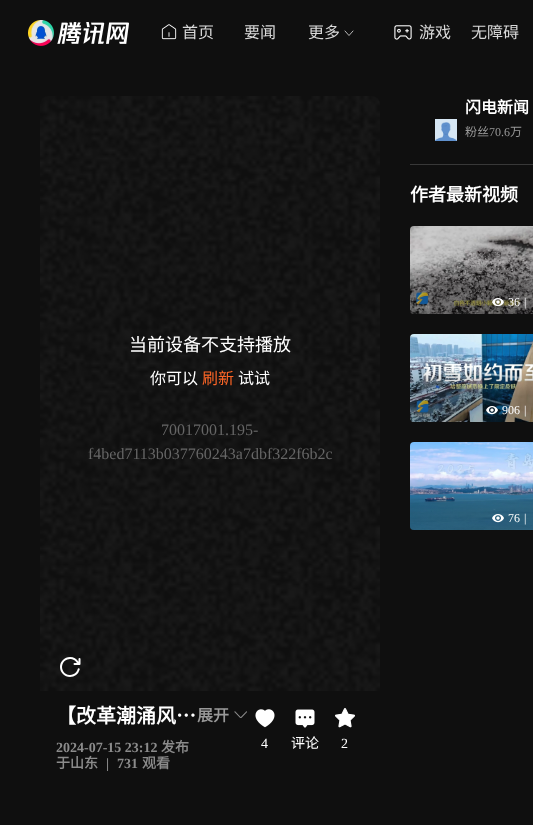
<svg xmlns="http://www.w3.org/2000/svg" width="533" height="825">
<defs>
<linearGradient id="g1" gradientUnits="userSpaceOnUse" x1="487" y1="314" x2="487" y2="226"><stop offset="0.3" stop-color="#000" stop-opacity="0.3"/><stop offset="0.6" stop-color="#000" stop-opacity="0"/></linearGradient>
<linearGradient id="g2" gradientUnits="userSpaceOnUse" x1="487" y1="422" x2="487" y2="334"><stop offset="0.3" stop-color="#000" stop-opacity="0.3"/><stop offset="0.6" stop-color="#000" stop-opacity="0"/></linearGradient>
<linearGradient id="g3" gradientUnits="userSpaceOnUse" x1="487" y1="530" x2="487" y2="442"><stop offset="0.3" stop-color="#000" stop-opacity="0.3"/><stop offset="0.6" stop-color="#000" stop-opacity="0"/></linearGradient>
</defs>
<rect width="100%" height="100%" fill="#0f0f0f"/>
<image x="28" y="20" width="101" height="26" href="media/1.png"/>
<image x="161" y="24" width="16" height="16" href="media/2.png"/>
<text x="182" y="38" style="font-family:Noto Sans CJK SC;font-size:16px;fill:#d9d9d9">首页</text>
<text x="244" y="38" style="font-family:Noto Sans CJK SC;font-size:16px;fill:#d9d9d9">要闻</text>
<text x="308" y="38" style="font-family:Noto Sans CJK SC;font-size:16px;fill:#d9d9d9">更多</text>
<path d="M353 31l-4 4.5l-4-4.5" fill="none" stroke="#fff" stroke-width="0.7" stroke-linecap="round" stroke-linejoin="round"/>
<image x="394" y="25" width="18" height="15" href="media/3.png"/>
<text x="419" y="38" style="font-family:Noto Sans CJK SC;font-size:16px;fill:#d9d9d9">游戏</text>
<text x="471" y="38" style="font-family:Noto Sans CJK SC;font-size:16px;fill:#d9d9d9">无障碍</text>
<image x="40" y="96" width="340" height="595" href="media/4.png"/>
<text x="129" y="351" style="font-family:Noto Sans CJK SC;font-size:18px;fill:#fff">当前设备不支持播放</text>
<text x="150" y="384" style="font-family:Noto Sans CJK SC;font-size:16px;fill:#fff">你可以</text>
<text x="202" y="384" style="font-family:Noto Sans CJK SC;font-size:16px;fill:#fc6526">刷新</text>
<text x="238" y="384" style="font-family:Noto Sans CJK SC;font-size:16px;fill:#fff">试试</text>
<text x="161" y="435" style="font-family:Liberation Serif;font-size:16px;fill:#666">70017001.195-</text>
<text x="88" y="459" style="font-family:Liberation Serif;font-size:16px;fill:#666">f4bed7113b037760243a7dbf322f6b2c</text>
<text x="56" y="723" word-spacing="1" style="font-family:Noto Sans CJK SC;font-size:20px;font-weight:bold;fill:#fff">【改革潮涌风…</text>
<text x="197" y="721" style="font-family:Noto Sans CJK SC;font-size:16px;font-weight:bold;fill:#999">展开</text>
<image x="234" y="711" width="13" height="7" href="media/5.png"/>
<text x="56" y="752" style="font-family:Liberation Serif;font-size:14px;font-weight:bold;fill:#8b8b8b">2024-07-15 23:12</text>
<text x="161" y="752" style="font-family:Noto Sans CJK SC;font-size:14px;font-weight:bold;fill:#8b8b8b">发布</text>
<text x="56" y="768" style="font-family:Noto Sans CJK SC;font-size:14px;font-weight:bold;fill:#8b8b8b">于山东</text>
<text x="106" y="768" style="font-family:Liberation Serif;font-size:14px;font-weight:bold;fill:#8b8b8b">|</text>
<text x="117" y="768" style="font-family:Liberation Serif;font-size:14px;font-weight:bold;fill:#8b8b8b">731</text>
<text x="142" y="768" style="font-family:Noto Sans CJK SC;font-size:14px;font-weight:bold;fill:#8b8b8b">观看</text>
<image x="255" y="709" width="20" height="19" href="media/6.png"/>
<text x="261" y="748" style="font-family:Liberation Serif;font-size:14px;fill:#fff">4</text>
<image x="295" y="709" width="20" height="19" href="media/7.png"/>
<text x="291" y="748" style="font-family:Noto Sans CJK SC;font-size:14px;fill:#fff">评论</text>
<image x="335" y="708" width="20" height="20" href="media/8.png"/>
<text x="341" y="748" style="font-family:Liberation Serif;font-size:14px;fill:#fff">2</text>
<image x="435" y="119" width="22" height="22" href="media/9.png"/>
<text x="465" y="113" style="font-family:Noto Sans CJK SC;font-size:16px;font-weight:bold;fill:#fff">闪电新闻</text>
<text x="465" y="136" style="font-family:Noto Sans CJK SC;font-size:12px;fill:#999">粉丝</text>
<text x="489" y="136" style="font-family:Liberation Serif;font-size:12px;fill:#999">70.6</text>
<text x="510" y="136" style="font-family:Noto Sans CJK SC;font-size:12px;fill:#999">万</text>
<rect x="410" y="164" width="123" height="1" fill="#383838"/>
<text x="410" y="201" style="font-family:Noto Sans CJK SC;font-size:18px;font-weight:bold;fill:#fff">作者最新视频</text>
<image x="410" y="226" width="123" height="88" href="media/10.png"/>
<rect x="410" y="226" width="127" height="88" rx="4" fill="url(#g1)"/>
<image x="492" y="298" width="12" height="9" href="media/11.png"/>
<text x="508" y="306" style="font-family:Liberation Serif;font-size:12px;fill:#fff">36</text>
<text x="524" y="306" style="font-family:Liberation Serif;font-size:12px;fill:#fff">|</text>
<image x="410" y="334" width="123" height="88" href="media/12.png"/>
<rect x="410" y="334" width="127" height="88" rx="4" fill="url(#g2)"/>
<image x="486" y="406" width="12" height="9" href="media/13.png"/>
<text x="502" y="414" style="font-family:Liberation Serif;font-size:12px;fill:#fff">906</text>
<text x="524" y="414" style="font-family:Liberation Serif;font-size:12px;fill:#fff">|</text>
<image x="410" y="442" width="123" height="88" href="media/14.png"/>
<rect x="410" y="442" width="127" height="88" rx="4" fill="url(#g3)"/>
<image x="492" y="514" width="12" height="9" href="media/15.png"/>
<text x="508" y="522" style="font-family:Liberation Serif;font-size:12px;fill:#fff">76</text>
<text x="524" y="522" style="font-family:Liberation Serif;font-size:12px;fill:#fff">|</text>
</svg>
